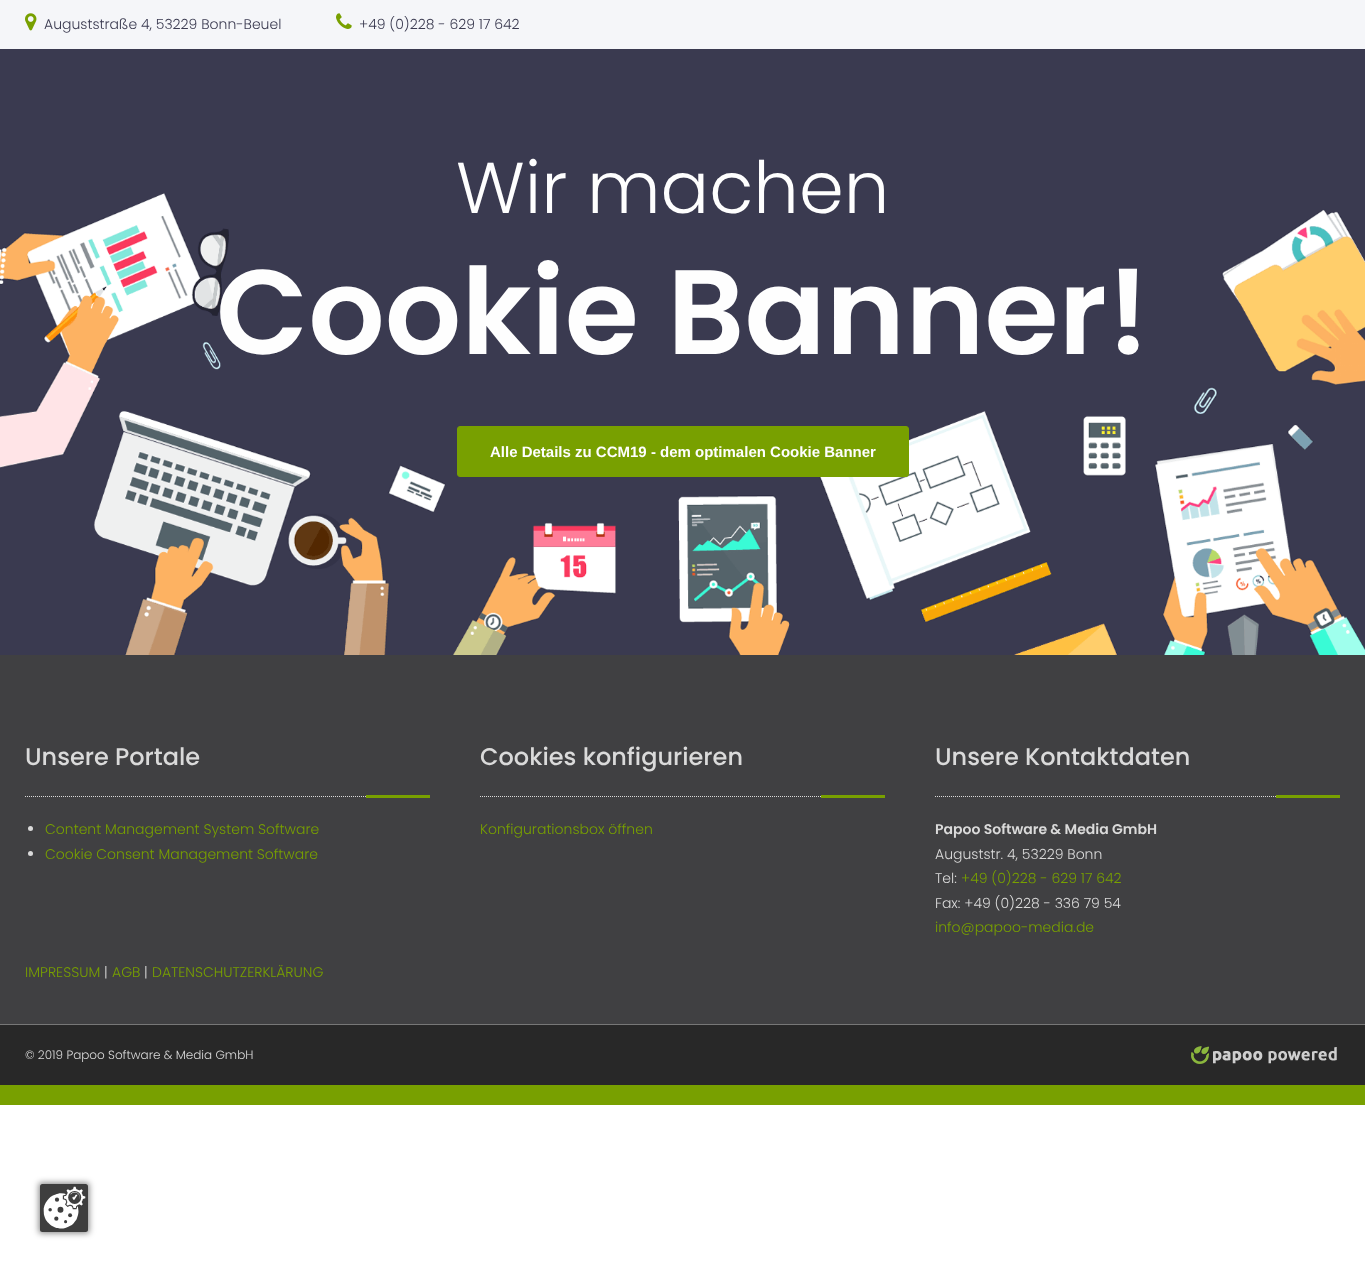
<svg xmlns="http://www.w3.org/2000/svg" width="1365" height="1272">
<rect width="100%" height="100%" fill="#fff"/>
<rect width="1365" height="49" fill="#f5f6f9"/>
<image x="25" y="13" width="12" height="18" href="media/1.png"/>
<text x="44" y="29" style="font-family:Poppins;font-size:14px;font-weight:300;fill:#3a3a50">Auguststraße 4, 53229 Bonn-Beuel</text>
<image x="336" y="13" width="16" height="16" href="media/2.png"/>
<text x="359" y="29" style="font-family:Poppins;font-size:14px;font-weight:300;fill:#3a3a50">+49 (0)228 - 629 17 642</text>
<image x="0" y="49" width="1365" height="606" href="media/3.png"/>
<text x="456" y="213" style="font-family:Poppins;font-size:72px;font-weight:300;fill:#fefefe">Wir machen</text>
<text x="216" y="354" style="font-family:Poppins;font-size:120px;font-weight:600;fill:#fefefe">Cookie Banner!</text>
<rect x="457.5" y="426.5" width="451" height="50" rx="2.5" fill="#78a000" stroke="#78a000"/>
<text x="490" y="457" style="font-family:Liberation Sans;font-size:15px;font-weight:bold;fill:#fefefe">Alle Details zu CCM19 - dem optimalen Cookie Banner</text>
<rect y="655" width="1365" height="369" fill="#404042"/>
<path d="M25 796.5h405" fill="none" stroke="#dadada" stroke-dasharray="1 1"/>
<text x="25" y="765" style="font-family:Poppins;font-size:24px;font-weight:500;fill:#dadada">Unsere Portale</text>
<rect x="366" y="795" width="64" height="3" fill="#78a000"/>
<circle cx="30.5" cy="828.5" r="2.5" fill="#dadada"/>
<text x="45" y="834" style="font-family:Poppins;font-size:14px;font-weight:300;fill:#78a000">Content Management System Software</text>
<circle cx="30.5" cy="853.5" r="2.5" fill="#dadada"/>
<text x="45" y="859" style="font-family:Poppins;font-size:14px;font-weight:300;fill:#78a000">Cookie Consent Management Software</text>
<path d="M480 796.5h405" fill="none" stroke="#dadada" stroke-dasharray="1 1"/>
<text x="480" y="765" style="font-family:Poppins;font-size:24px;font-weight:500;fill:#dadada">Cookies konfigurieren</text>
<rect x="821" y="795" width="64" height="3" fill="#78a000"/>
<text x="480" y="834" style="font-family:Poppins;font-size:14px;font-weight:300;fill:#78a000">Konfigurationsbox öffnen</text>
<path d="M935 796.5h405" fill="none" stroke="#dadada" stroke-dasharray="1 1"/>
<text x="935" y="765" style="font-family:Poppins;font-size:24px;font-weight:500;fill:#dadada">Unsere Kontaktdaten</text>
<rect x="1276" y="795" width="64" height="3" fill="#78a000"/>
<text x="935" y="834" style="font-family:Poppins;font-size:14px;font-weight:600;fill:#dadada">Papoo Software &amp; Media GmbH</text>
<text x="935" y="859" style="font-family:Poppins;font-size:14px;font-weight:300;fill:#dadada">Auguststr. 4, 53229 Bonn</text>
<text x="935" y="883" style="font-family:Poppins;font-size:14px;font-weight:300;fill:#dadada">Tel:</text>
<text x="961" y="883" style="font-family:Poppins;font-size:14px;font-weight:300;fill:#78a000">+49 (0)228 - 629 17 642</text>
<text x="935" y="908" style="font-family:Poppins;font-size:14px;font-weight:300;fill:#dadada">Fax: +49 (0)228 - 336 79 54</text>
<text x="935" y="932" style="font-family:Poppins;font-size:14px;font-weight:300;fill:#78a000">info@papoo-media.de</text>
<text x="25" y="977" style="font-family:Poppins;font-size:14px;font-weight:300;fill:#78a000">IMPRESSUM</text>
<text x="104" y="977" style="font-family:Poppins;font-size:14px;font-weight:300;fill:#dadada">|</text>
<text x="112" y="977" style="font-family:Poppins;font-size:14px;font-weight:300;fill:#78a000">AGB</text>
<text x="144" y="977" style="font-family:Poppins;font-size:14px;font-weight:300;fill:#dadada">|</text>
<text x="152" y="977" style="font-family:Poppins;font-size:14px;font-weight:300;fill:#78a000">DATENSCHUTZERKLÄRUNG</text>
<rect y="1025" width="1365" height="60" fill="#282828"/>
<rect y="1024" width="1365" height="1" fill="#777"/>
<rect y="1085" width="1365" height="20" fill="#78a000"/>
<text x="25" y="1059" style="font-family:Poppins;font-size:12px;font-weight:300;fill:#dadada">© 2019 Papoo Software &amp; Media GmbH</text>
<image x="1191" y="1046" width="146" height="18" href="media/4.png"/>
<rect x="39" y="1183" width="50" height="50" fill="#00000080" filter="blur(3px)"/>
<image x="40" y="1184" width="48" height="48" href="media/5.png"/>
</svg>
